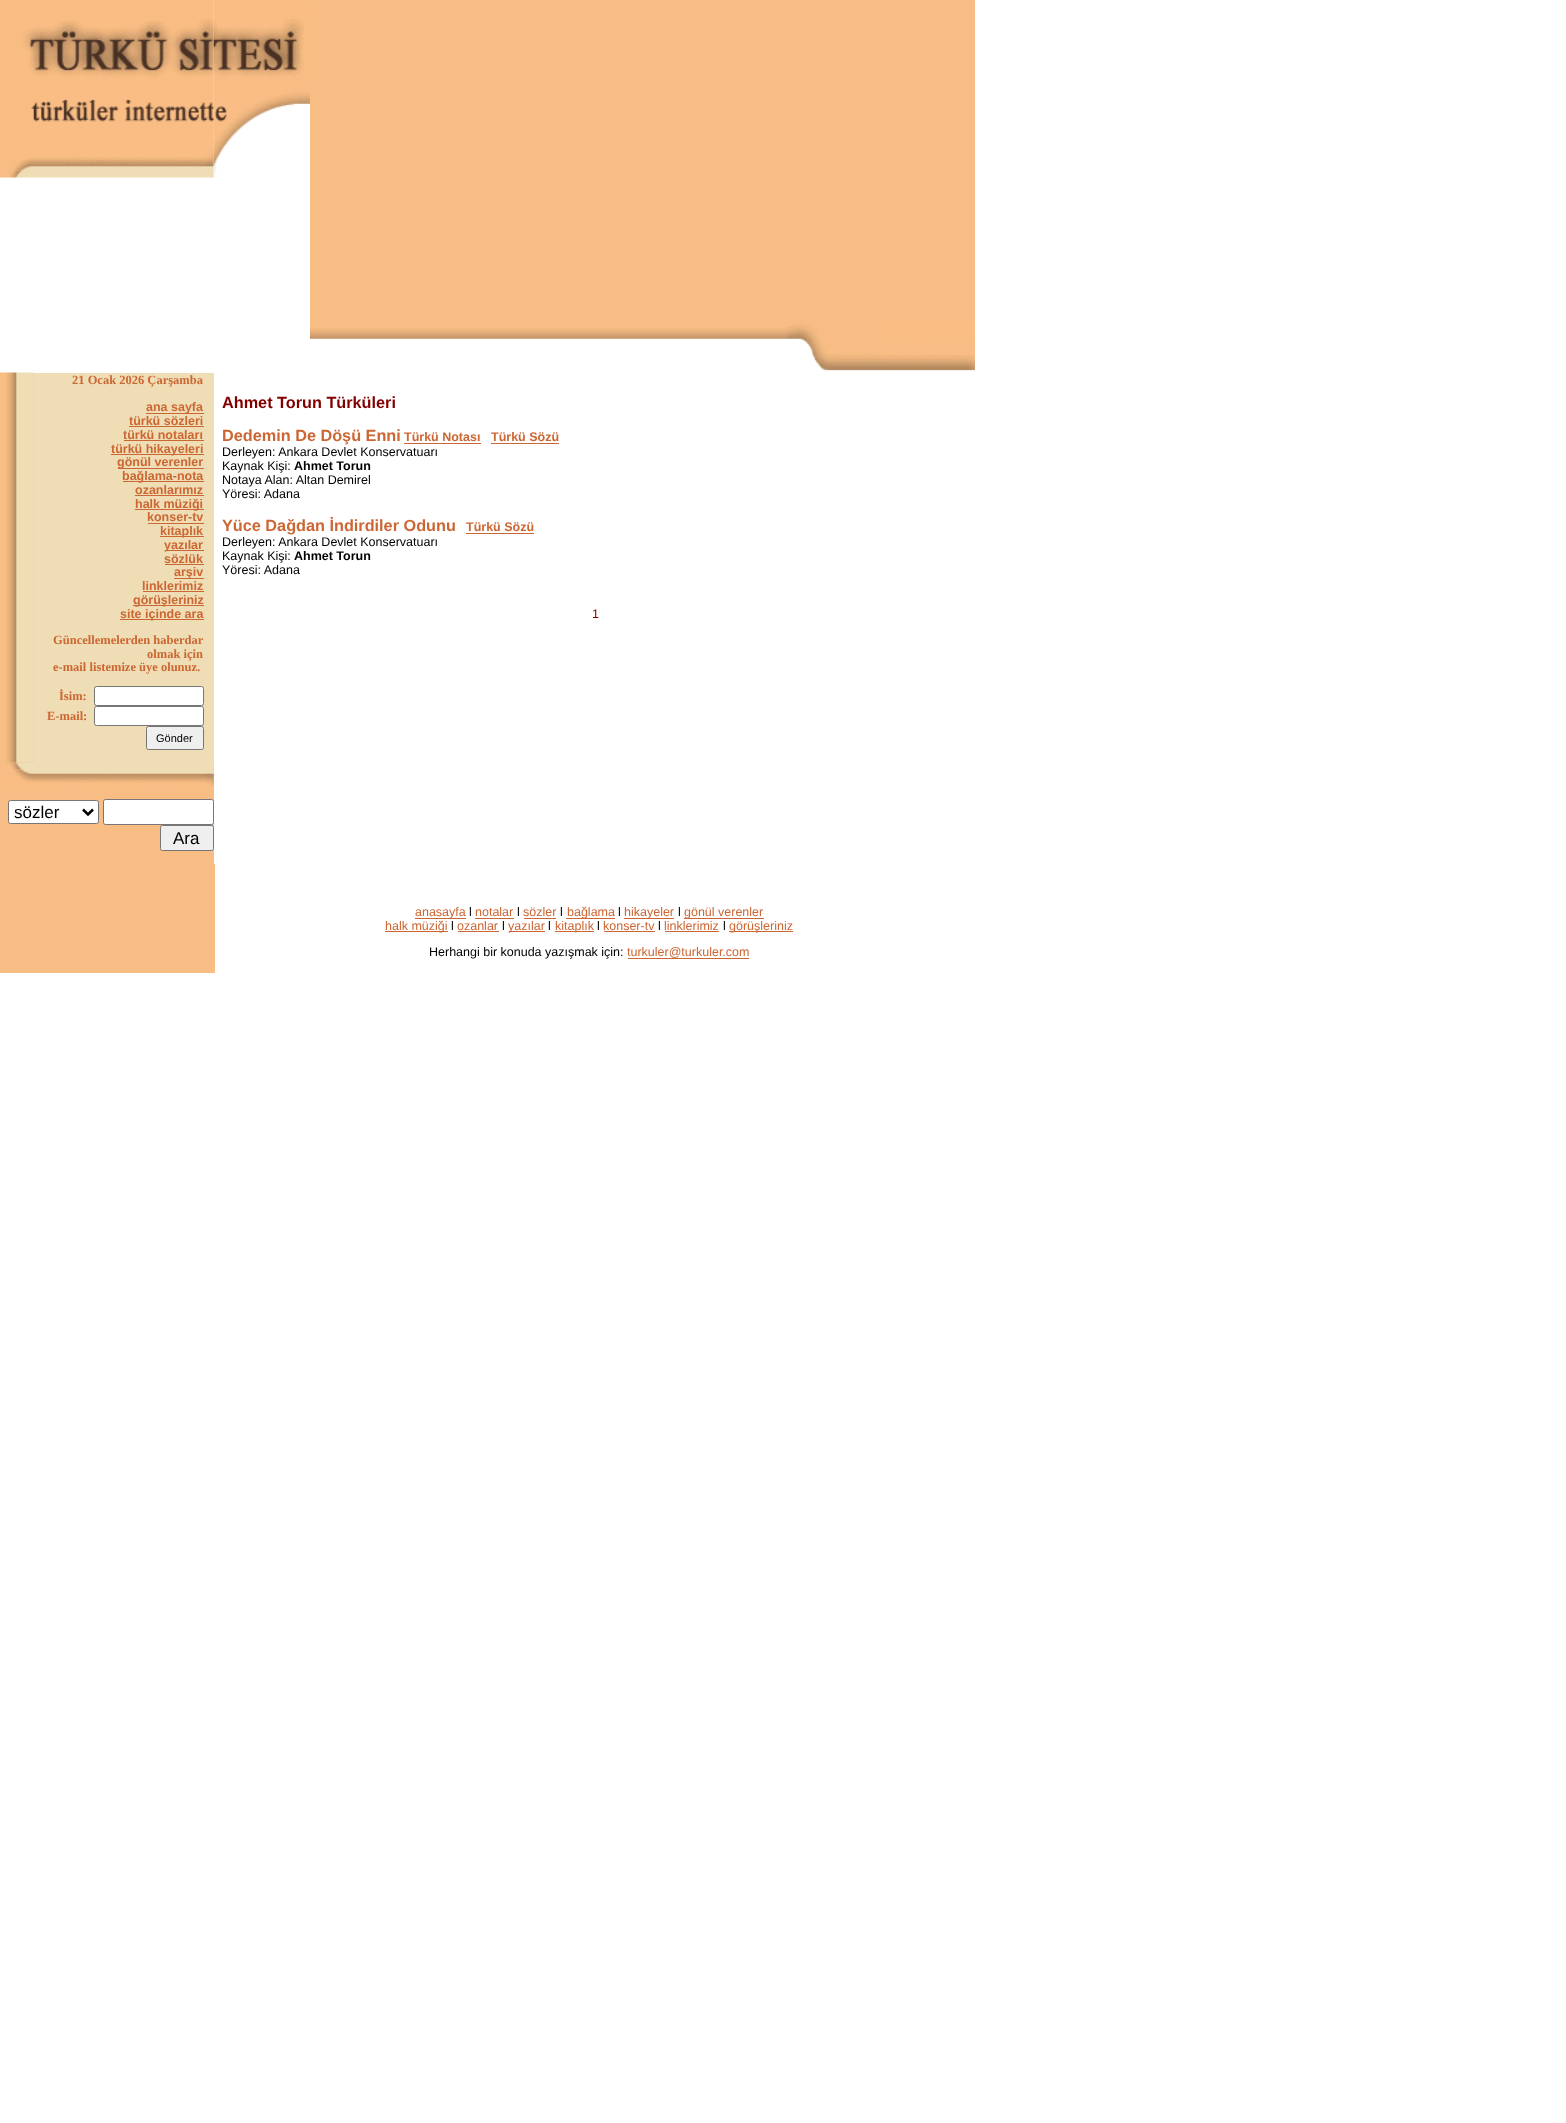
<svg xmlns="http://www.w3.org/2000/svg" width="1566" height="2123">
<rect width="100%" height="100%" fill="#fff"/>
<image x="0" y="0" width="214" height="178" href="media/1.png"/>
<image x="213" y="0" width="97" height="176" href="media/2.png"/>
<rect x="310" width="665" height="320" fill="#f7bd84"/>
<image x="310" y="320" width="477" height="19" href="media/3.png"/>
<image x="786" y="320" width="1" height="19" href="media/4.png"/>
<image x="786" y="320" width="189" height="51" href="media/5.png"/>
<rect y="373" width="214" height="491" fill="#f7bd84"/>
<image x="0" y="372" width="34" height="391" href="media/6.png"/>
<rect x="34" y="373" width="180" height="390" fill="#efdeb5"/>
<text x="72" y="384" style="font-family:Liberation Serif;font-size:12.5px;font-weight:bold;fill:#c63">21 Ocak 2026 Çarşamba</text>
<rect x="146" y="413" width="58" height="1" fill="#c63"/>
<text x="146" y="411" style="font-family:Liberation Sans;font-size:12.5px;font-weight:bold;fill:#c63">ana sayfa</text>
<text x="129" y="425" style="font-family:Liberation Sans;font-size:12.5px;font-weight:bold;fill:#c63">türkü sözleri</text>
<rect x="129" y="426" width="75" height="1" fill="#c63"/>
<text x="123" y="439" style="font-family:Liberation Sans;font-size:12.5px;font-weight:bold;fill:#c63">türkü notaları</text>
<rect x="124" y="440" width="80" height="1" fill="#c63"/>
<rect x="111" y="454" width="93" height="1" fill="#c63"/>
<text x="111" y="453" style="font-family:Liberation Sans;font-size:12.5px;font-weight:bold;fill:#c63">türkü hikayeleri</text>
<rect x="118" y="468" width="86" height="1" fill="#c63"/>
<text x="117" y="466" style="font-family:Liberation Sans;font-size:12.5px;font-weight:bold;fill:#c63">gönül verenler</text>
<rect x="123" y="481" width="81" height="1" fill="#c63"/>
<text x="122" y="480" style="font-family:Liberation Sans;font-size:12.5px;font-weight:bold;fill:#c63">bağlama-nota</text>
<text x="135" y="494" style="font-family:Liberation Sans;font-size:12.5px;font-weight:bold;fill:#c63">ozanlarımız</text>
<rect x="135" y="495" width="69" height="1" fill="#c63"/>
<rect x="135" y="509" width="69" height="1" fill="#c63"/>
<text x="135" y="508" style="font-family:Liberation Sans;font-size:12.5px;font-weight:bold;fill:#c63">halk müziği</text>
<text x="147" y="521" style="font-family:Liberation Sans;font-size:12.5px;font-weight:bold;fill:#c63">konser-tv</text>
<rect x="148" y="523" width="56" height="1" fill="#c63"/>
<rect x="160" y="536" width="44" height="1" fill="#c63"/>
<text x="160" y="535" style="font-family:Liberation Sans;font-size:12.5px;font-weight:bold;fill:#c63">kitaplık</text>
<rect x="165" y="550" width="39" height="1" fill="#c63"/>
<text x="164" y="549" style="font-family:Liberation Sans;font-size:12.5px;font-weight:bold;fill:#c63">yazılar</text>
<text x="164" y="563" style="font-family:Liberation Sans;font-size:12.5px;font-weight:bold;fill:#c63">sözlük</text>
<rect x="165" y="564" width="39" height="1" fill="#c63"/>
<rect x="174" y="578" width="30" height="1" fill="#c63"/>
<text x="174" y="576" style="font-family:Liberation Sans;font-size:12.5px;font-weight:bold;fill:#c63">arşiv</text>
<text x="142" y="590" style="font-family:Liberation Sans;font-size:12.5px;font-weight:bold;fill:#c63">linklerimiz</text>
<rect x="143" y="591" width="61" height="1" fill="#c63"/>
<rect x="133" y="605" width="71" height="1" fill="#c63"/>
<text x="133" y="604" style="font-family:Liberation Sans;font-size:12.5px;font-weight:bold;fill:#c63">görüşleriniz</text>
<rect x="120" y="619" width="84" height="1" fill="#c63"/>
<text x="120" y="618" style="font-family:Liberation Sans;font-size:12.5px;font-weight:bold;fill:#c63">site içinde ara</text>
<text x="53" y="644" style="font-family:Liberation Serif;font-size:12.5px;font-weight:bold;fill:#c63">Güncellemelerden haberdar</text>
<text x="147" y="658" style="font-family:Liberation Serif;font-size:12.5px;font-weight:bold;fill:#c63">olmak için</text>
<text x="53" y="671" style="font-family:Liberation Serif;font-size:12.5px;font-weight:bold;fill:#c63">e-mail listemize üye olunuz.</text>
<text x="59" y="700" style="font-family:Liberation Serif;font-size:12.5px;font-weight:bold;fill:#c63">İsim:</text>
<rect x="94.5" y="686.5" width="109" height="19" rx="2" fill="#fff" stroke="#767676"/>
<text x="47" y="720" style="font-family:Liberation Serif;font-size:12.5px;font-weight:bold;fill:#c63">E-mail:</text>
<rect x="94.5" y="706.5" width="109" height="19" rx="2" fill="#fff" stroke="#767676"/>
<rect x="146.5" y="726.5" width="57" height="23" rx="2" fill="#efefef" stroke="#767676"/>
<text x="156" y="742" style="font-family:Liberation Sans;font-size:11px;fill:#000">Gönder</text>
<image x="0" y="762" width="214" height="24" href="media/7.png"/>
<rect x="8.5" y="800.5" width="90" height="23" rx="2" fill="#fff" stroke="#767676"/>
<path d="M83 809.5l5 5l5-5" fill="none" stroke="#000" stroke-width="2.5"/>
<text x="14" y="818" style="font-family:Liberation Sans;font-size:17px;fill:#000">sözler</text>
<rect x="103.5" y="799.5" width="110" height="25" rx="2" fill="#fff" stroke="#767676"/>
<rect x="160.5" y="825.5" width="53" height="25" rx="2" fill="#efefef" stroke="#767676"/>
<text x="173" y="844" style="font-family:Liberation Sans;font-size:17px;fill:#000">Ara</text>
<text x="222" y="408" style="font-family:Liberation Sans;font-size:16.25px;font-weight:bold;fill:#800000">Ahmet Torun Türküleri</text>
<text x="222" y="441" style="font-family:Liberation Sans;font-size:16.25px;font-weight:bold;fill:#c63">Dedemin De Döşü Enni</text>
<text x="404" y="441" style="font-family:Liberation Sans;font-size:12.5px;font-weight:bold;fill:#c63">Türkü Notası</text>
<rect x="404" y="443" width="77" height="1" fill="#c63"/>
<text x="491" y="441" style="font-family:Liberation Sans;font-size:12.5px;font-weight:bold;fill:#c63">Türkü Sözü</text>
<rect x="491" y="443" width="68" height="1" fill="#c63"/>
<text x="222" y="456" style="font-family:Liberation Sans;font-size:12.5px;fill:#000">Derleyen: Ankara Devlet Konservatuarı</text>
<text x="222" y="470" style="font-family:Liberation Sans;font-size:12.5px;fill:#000">Kaynak Kişi:</text>
<text x="294" y="470" style="font-family:Liberation Sans;font-size:12.5px;font-weight:bold;fill:#000">Ahmet Torun</text>
<text x="222" y="484" style="font-family:Liberation Sans;font-size:12.5px;fill:#000">Notaya Alan: Altan Demirel</text>
<text x="222" y="498" style="font-family:Liberation Sans;font-size:12.5px;fill:#000">Yöresi: Adana</text>
<text x="222" y="531" style="font-family:Liberation Sans;font-size:16.25px;font-weight:bold;fill:#c63">Yüce Dağdan İndirdiler Odunu</text>
<text x="466" y="531" style="font-family:Liberation Sans;font-size:12.5px;font-weight:bold;fill:#c63">Türkü Sözü</text>
<rect x="466" y="533" width="68" height="1" fill="#c63"/>
<text x="222" y="546" style="font-family:Liberation Sans;font-size:12.5px;fill:#000">Derleyen: Ankara Devlet Konservatuarı</text>
<text x="222" y="560" style="font-family:Liberation Sans;font-size:12.5px;fill:#000">Kaynak Kişi:</text>
<text x="294" y="560" style="font-family:Liberation Sans;font-size:12.5px;font-weight:bold;fill:#000">Ahmet Torun</text>
<text x="222" y="574" style="font-family:Liberation Sans;font-size:12.5px;fill:#000">Yöresi: Adana</text>
<text x="592" y="618" style="font-family:Liberation Sans;font-size:12.5px;fill:#800000">1</text>
<rect y="864" width="215" height="109" fill="#f7bd84"/>
<rect x="415" y="918" width="51" height="1" fill="#c63"/>
<text x="415" y="916" style="font-family:Liberation Sans;font-size:12.5px;fill:#c63">anasayfa</text>
<text x="469" y="916" style="font-family:Liberation Sans;font-size:12.5px;fill:#000">l</text>
<text x="475" y="916" style="font-family:Liberation Sans;font-size:12.5px;fill:#c63">notalar</text>
<rect x="475" y="918" width="39" height="1" fill="#c63"/>
<text x="517" y="916" style="font-family:Liberation Sans;font-size:12.5px;fill:#000">l</text>
<text x="523" y="916" style="font-family:Liberation Sans;font-size:12.5px;fill:#c63">sözler</text>
<rect x="524" y="918" width="32" height="1" fill="#c63"/>
<text x="560" y="916" style="font-family:Liberation Sans;font-size:12.5px;fill:#000">l</text>
<rect x="566" y="918" width="49" height="1" fill="#c63"/>
<text x="567" y="916" style="font-family:Liberation Sans;font-size:12.5px;fill:#c63">bağlama</text>
<text x="618" y="916" style="font-family:Liberation Sans;font-size:12.5px;fill:#000">l</text>
<rect x="624" y="918" width="50" height="1" fill="#c63"/>
<text x="624" y="916" style="font-family:Liberation Sans;font-size:12.5px;fill:#c63">hikayeler</text>
<text x="678" y="916" style="font-family:Liberation Sans;font-size:12.5px;fill:#000">l</text>
<rect x="684" y="918" width="80" height="1" fill="#c63"/>
<text x="684" y="916" style="font-family:Liberation Sans;font-size:12.5px;fill:#c63">gönül verenler</text>
<rect x="385" y="931" width="63" height="1" fill="#c63"/>
<text x="385" y="930" style="font-family:Liberation Sans;font-size:12.5px;fill:#c63">halk müziği</text>
<text x="451" y="930" style="font-family:Liberation Sans;font-size:12.5px;fill:#000">l</text>
<text x="457" y="930" style="font-family:Liberation Sans;font-size:12.5px;fill:#c63">ozanlar</text>
<rect x="458" y="931" width="41" height="1" fill="#c63"/>
<text x="502" y="930" style="font-family:Liberation Sans;font-size:12.5px;fill:#000">l</text>
<rect x="509" y="931" width="36" height="1" fill="#c63"/>
<text x="508" y="930" style="font-family:Liberation Sans;font-size:12.5px;fill:#c63">yazılar</text>
<text x="548" y="930" style="font-family:Liberation Sans;font-size:12.5px;fill:#000">l</text>
<rect x="555" y="931" width="39" height="1" fill="#c63"/>
<text x="555" y="930" style="font-family:Liberation Sans;font-size:12.5px;fill:#c63">kitaplık</text>
<text x="597" y="930" style="font-family:Liberation Sans;font-size:12.5px;fill:#000">l</text>
<text x="603" y="930" style="font-family:Liberation Sans;font-size:12.5px;fill:#c63">konser-tv</text>
<rect x="604" y="931" width="51" height="1" fill="#c63"/>
<text x="658" y="930" style="font-family:Liberation Sans;font-size:12.5px;fill:#000">l</text>
<text x="664" y="930" style="font-family:Liberation Sans;font-size:12.5px;fill:#c63">linklerimiz</text>
<rect x="665" y="931" width="54" height="1" fill="#c63"/>
<text x="723" y="930" style="font-family:Liberation Sans;font-size:12.5px;fill:#000">l</text>
<rect x="729" y="931" width="64" height="1" fill="#c63"/>
<text x="729" y="930" style="font-family:Liberation Sans;font-size:12.5px;fill:#c63">görüşleriniz</text>
<text x="429" y="956" style="font-family:Liberation Sans;font-size:12.5px;fill:#000">Herhangi bir konuda yazışmak için:</text>
<text x="627" y="956" style="font-family:Liberation Sans;font-size:12.5px;fill:#c63">turkuler@turkuler.com</text>
<rect x="628" y="958" width="121" height="1" fill="#c63"/>
</svg>
